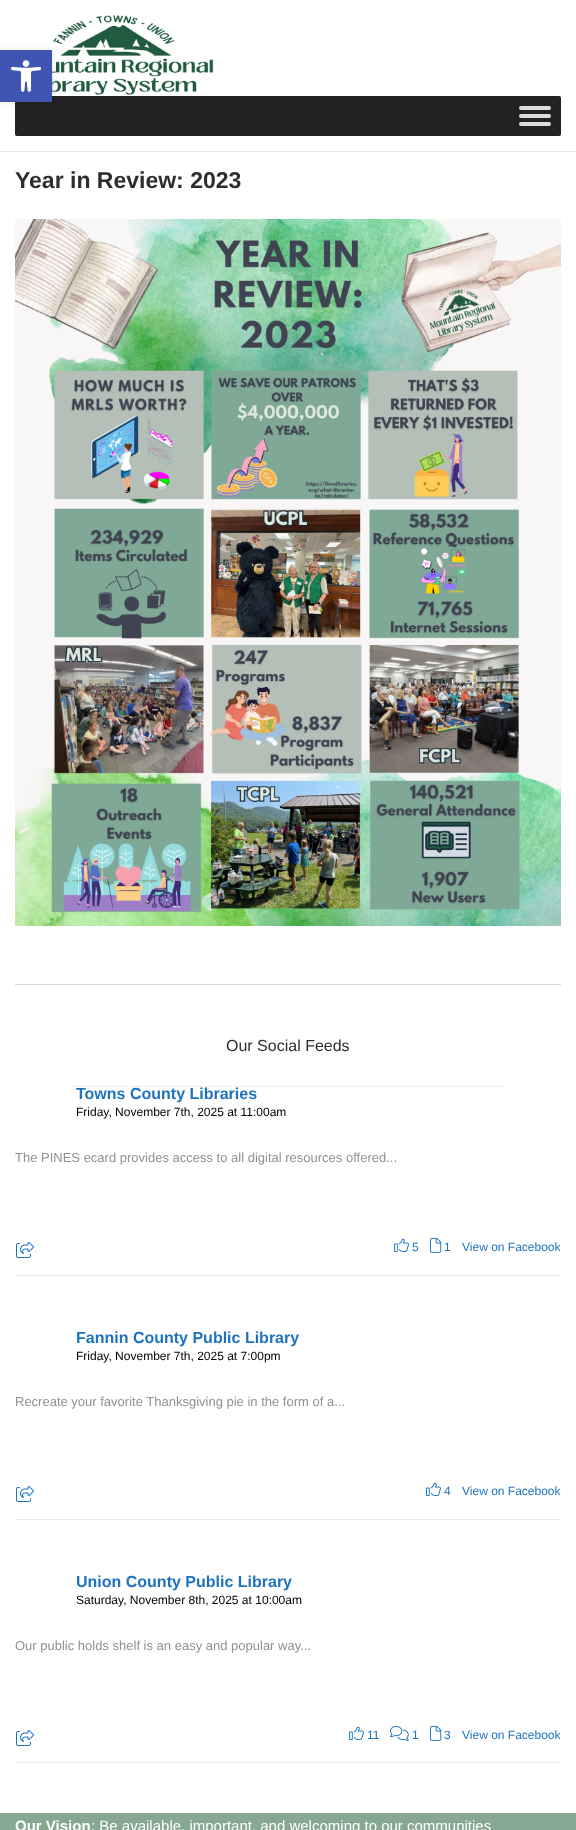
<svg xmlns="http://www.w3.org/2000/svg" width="576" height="1830">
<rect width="100%" height="100%" fill="#fff"/>
<image x="52" y="15" width="162" height="80" href="media/2.png"/>
<rect x="15" y="96" width="546" height="40" rx="2" fill="#222"/>
<rect y="50" width="52" height="52" fill="#0000001a" filter="blur(5px)"/>
<rect y="50" width="52" height="52" fill="#4054b2"/>
<image x="11" y="60" width="30" height="32" href="media/1.png"/>
<rect y="151" width="576" height="1" fill="#e6e6e6"/>
<rect x="519" y="106" width="32" height="4" rx="2" fill="#ddd"/>
<rect x="519" y="114" width="32" height="4" rx="2" fill="#ddd"/>
<rect x="519" y="122" width="32" height="4" rx="2" fill="#ddd"/>
<text x="15" y="188" style="font-family:Liberation Sans;font-size:23px;font-weight:bold;fill:#2d2d2d">Year in Review: 2023</text>
<image x="15" y="219" width="546" height="707" href="media/3.png"/>
<rect x="15" y="984" width="546" height="1" fill="#d6d6d6"/>
<text x="226" y="1051" style="font-family:Liberation Sans;font-size:16px;fill:#2d2d2d">Our Social Feeds</text>
<rect x="70" y="1086" width="436" height="1" fill="#eee"/>
<rect x="15" y="1275" width="546" height="1" fill="#eaeaea"/>
<text x="76" y="1099" style="font-family:Liberation Sans;font-size:16px;font-weight:bold;fill:#1e73be">Towns County Libraries</text>
<text x="76" y="1116" style="font-family:Liberation Sans;font-size:12px;fill:#000">Friday, November 7th, 2025 at 11:00am</text>
<text x="15" y="1162" style="font-family:Liberation Sans;font-size:13px;fill:#919191">The PINES ecard provides access to all digital resources offered...</text>
<image x="16" y="1242" width="18" height="16" href="media/4.png"/>
<image x="394" y="1238" width="15" height="14" href="media/5.png"/>
<text x="412" y="1251" style="font-family:Liberation Sans;font-size:12px;fill:#1e73be">5</text>
<image x="430" y="1237" width="12" height="16" href="media/6.png"/>
<text x="444" y="1251" style="font-family:Liberation Sans;font-size:12px;fill:#1e73be">1</text>
<text x="462" y="1251" style="font-family:Liberation Sans;font-size:12px;fill:#1e73be">View on Facebook</text>
<rect x="15" y="1519" width="546" height="1" fill="#eaeaea"/>
<text x="76" y="1343" style="font-family:Liberation Sans;font-size:16px;font-weight:bold;fill:#1e73be">Fannin County Public Library</text>
<text x="76" y="1360" style="font-family:Liberation Sans;font-size:12px;fill:#000">Friday, November 7th, 2025 at 7:00pm</text>
<text x="15" y="1406" style="font-family:Liberation Sans;font-size:13px;fill:#919191">Recreate your favorite Thanksgiving pie in the form of a...</text>
<image x="16" y="1486" width="18" height="16" href="media/4.png"/>
<image x="426" y="1482" width="15" height="14" href="media/5.png"/>
<text x="444" y="1495" style="font-family:Liberation Sans;font-size:12px;fill:#1e73be">4</text>
<text x="462" y="1495" style="font-family:Liberation Sans;font-size:12px;fill:#1e73be">View on Facebook</text>
<rect x="15" y="1762" width="546" height="1" fill="#eaeaea"/>
<text x="76" y="1587" style="font-family:Liberation Sans;font-size:16px;font-weight:bold;fill:#1e73be">Union County Public Library</text>
<text x="76" y="1604" style="font-family:Liberation Sans;font-size:12px;fill:#000">Saturday, November 8th, 2025 at 10:00am</text>
<text x="15" y="1650" style="font-family:Liberation Sans;font-size:13px;fill:#919191">Our public holds shelf is an easy and popular way...</text>
<image x="16" y="1730" width="18" height="16" href="media/4.png"/>
<image x="349" y="1726" width="15" height="14" href="media/5.png"/>
<text x="367" y="1739" style="font-family:Liberation Sans;font-size:12px;fill:#1e73be">11</text>
<image x="390" y="1725" width="19" height="16" href="media/7.png"/>
<text x="412" y="1739" style="font-family:Liberation Sans;font-size:12px;fill:#1e73be">1</text>
<image x="430" y="1725" width="12" height="16" href="media/6.png"/>
<text x="444" y="1739" style="font-family:Liberation Sans;font-size:12px;fill:#1e73be">3</text>
<text x="462" y="1739" style="font-family:Liberation Sans;font-size:12px;fill:#1e73be">View on Facebook</text>
<rect y="1813" width="576" height="17" fill="#86a891"/>
<text x="15" y="1831" style="font-family:Liberation Sans;font-size:15px;font-weight:bold;fill:#fff">Our Vision</text>
<text x="91" y="1831" style="font-family:Liberation Sans;font-size:15px;fill:#fff">: Be available, important, and welcoming to our communities</text>
</svg>
